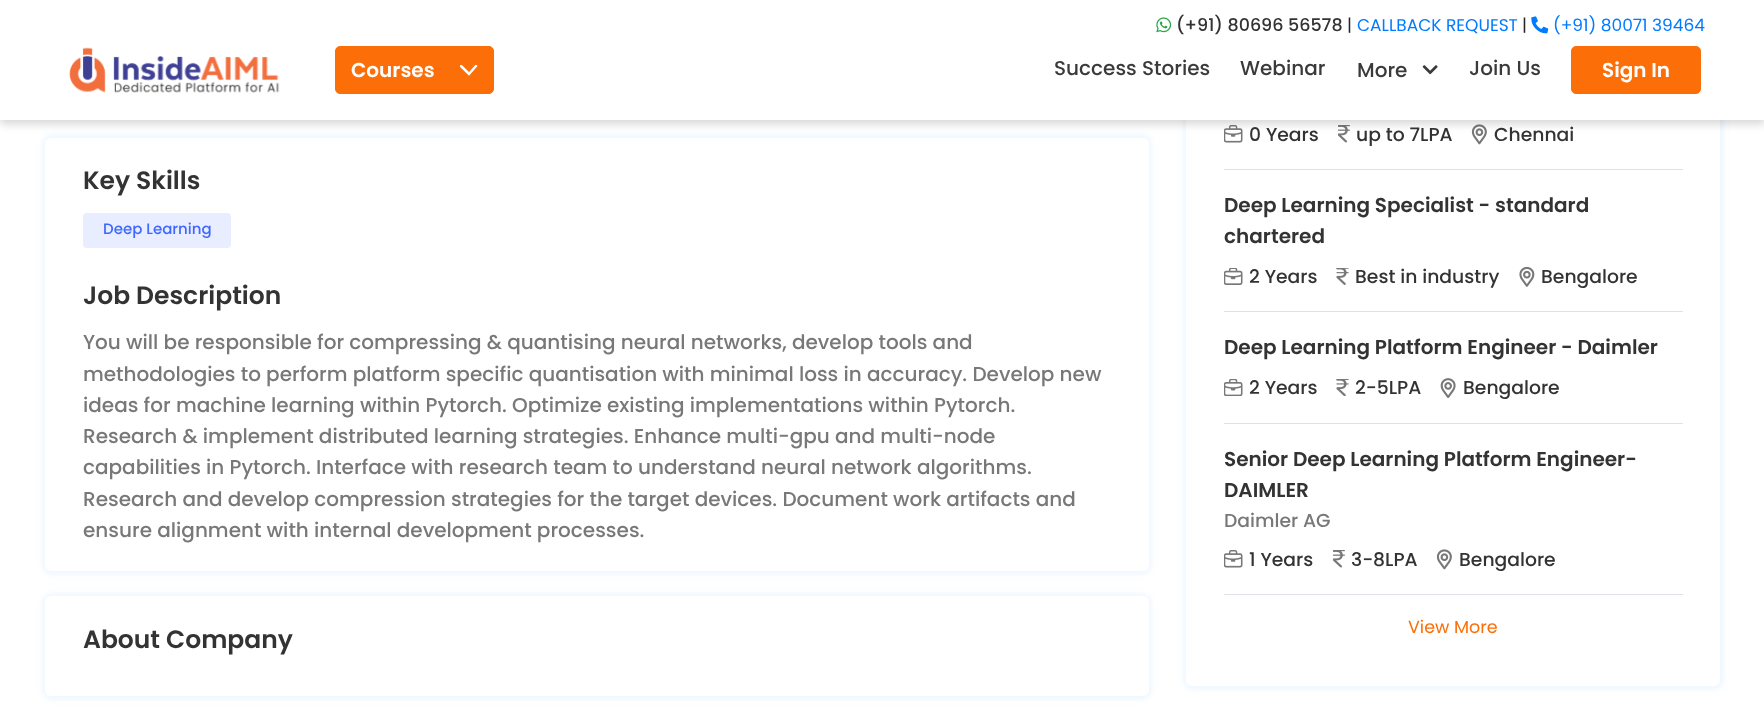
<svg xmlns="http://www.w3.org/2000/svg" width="1764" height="709">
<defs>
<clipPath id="clip1"><rect x="460" y="65" width="18" height="11"/></clipPath>
</defs>
<rect width="100%" height="100%" fill="#fff"/>
<rect x="1184" y="-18" width="539" height="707" rx="9" fill="#77beff26" filter="blur(3px)"/>
<rect x="1186" y="-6" width="534" height="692" rx="6" fill="#fff"/>
<image x="1224" y="125" width="19" height="18" href="media/5.png"/>
<image x="1338" y="125" width="12" height="18" href="media/6.png"/>
<image x="1471" y="124" width="16" height="21" href="media/7.png"/>
<rect y="4" width="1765" height="120" fill="#00000029" filter="blur(4px)"/>
<rect width="1764" height="120" fill="#fff"/>
<image x="1156" y="17" width="16" height="16" href="media/1.png"/>
<text x="1176" y="31" style="font-family:Poppins;font-size:17.5px;font-weight:500;fill:#333">(+91) 80696 56578</text>
<text x="1347" y="31" style="font-family:Poppins;font-size:17px;fill:#212529">|</text>
<text x="1357" y="31" style="font-family:Poppins;font-size:17px;fill:#007bff">CALLBACK REQUEST</text>
<text x="1522" y="31" style="font-family:Poppins;font-size:17px;fill:#212529">|</text>
<image x="1531" y="16" width="18" height="18" href="media/2.png"/>
<text x="1553" y="31" style="font-family:Poppins;font-size:17px;fill:#007bff">(+91) 80071 39464</text>
<image x="69" y="47" width="211" height="46" href="media/3.png"/>
<rect x="335.5" y="46.5" width="158" height="47" rx="4.5" fill="#fc6f08" stroke="#fc6f08"/>
<text x="351" y="77" style="font-family:Poppins;font-size:20px;font-weight:600;fill:#fff">Courses</text>
<g clip-path="url(#clip1)">
<path d="M461 66l8 8l7-8" fill="none" stroke="#fff" stroke-width="2.5" stroke-linecap="round"/>
</g>
<text x="1054" y="75" style="font-family:Poppins;font-size:20px;font-weight:500;fill:#3a3a3a">Success Stories</text>
<text x="1240" y="75" style="font-family:Poppins;font-size:20px;font-weight:500;fill:#3a3a3a">Webinar</text>
<text x="1357" y="77" style="font-family:Poppins;font-size:20px;font-weight:500;fill:#3a3a3a">More</text>
<image x="1422" y="65" width="16" height="10" href="media/4.png"/>
<text x="1469" y="75" style="font-family:Poppins;font-size:20px;font-weight:500;fill:#3a3a3a">Join Us</text>
<rect x="1571.5" y="46.5" width="129" height="47" rx="4.5" fill="#fc6f08" stroke="#fc6f08"/>
<text x="1602" y="77" style="font-family:Poppins;font-size:20px;font-weight:600;fill:#fff">Sign In</text>
<rect x="43" y="135" width="1108" height="439" rx="9" fill="#77beff26" filter="blur(3px)"/>
<rect x="45" y="138" width="1104" height="433" rx="6" fill="#fff"/>
<text x="83" y="189" style="font-family:Poppins;font-size:25px;font-weight:600;fill:#333">Key Skills</text>
<rect x="83" y="213" width="148" height="35" rx="4" fill="#e8edff"/>
<text x="103" y="234" style="font-family:Poppins;font-size:15px;font-weight:500;fill:#3e68ff">Deep Learning</text>
<text x="83" y="304" style="font-family:Poppins;font-size:25px;font-weight:600;fill:#333">Job Description</text>
<text x="83" y="349" style="font-family:Poppins;font-size:20px;font-weight:500;fill:#787878">You will be responsible for compressing &amp; quantising neural networks, develop tools and</text>
<text x="83" y="381" style="font-family:Poppins;font-size:20px;font-weight:500;fill:#787878">methodologies to perform platform specific quantisation with minimal loss in accuracy. Develop new</text>
<text x="83" y="412" style="font-family:Poppins;font-size:20px;font-weight:500;fill:#787878">ideas for machine learning within Pytorch. Optimize existing implementations within Pytorch.</text>
<text x="83" y="443" style="font-family:Poppins;font-size:20px;font-weight:500;fill:#787878">Research &amp; implement distributed learning strategies. Enhance multi-gpu and multi-node</text>
<text x="83" y="474" style="font-family:Poppins;font-size:20px;font-weight:500;fill:#787878">capabilities in Pytorch. Interface with research team to understand neural network algorithms.</text>
<text x="83" y="506" style="font-family:Poppins;font-size:20px;font-weight:500;fill:#787878">Research and develop compression strategies for the target devices. Document work artifacts and</text>
<text x="83" y="537" style="font-family:Poppins;font-size:20px;font-weight:500;fill:#787878">ensure alignment with internal development processes.</text>
<rect x="43" y="594" width="1108" height="105" rx="9" fill="#77beff26" filter="blur(3px)"/>
<rect x="45" y="596" width="1104" height="100" rx="6" fill="#fff"/>
<text x="83" y="648" style="font-family:Poppins;font-size:25px;font-weight:600;fill:#333">About Company</text>
<rect x="1224" y="169" width="459" height="1" fill="#dee2e6"/>
<text x="1249" y="141" style="font-family:Poppins;font-size:18.75px;font-weight:500;fill:#333">0 Years</text>
<text x="1356" y="141" style="font-family:Poppins;font-size:18.75px;font-weight:500;fill:#333">up to 7LPA</text>
<text x="1494" y="141" style="font-family:Poppins;font-size:18.75px;font-weight:500;fill:#333">Chennai</text>
<rect x="1224" y="311" width="459" height="1" fill="#dee2e6"/>
<text x="1224" y="212" style="font-family:Poppins;font-size:20px;font-weight:600;fill:#333">Deep Learning Specialist - standard</text>
<text x="1224" y="243" style="font-family:Poppins;font-size:20px;font-weight:600;fill:#333">chartered</text>
<image x="1224" y="268" width="19" height="17" href="media/8.png"/>
<text x="1249" y="283" style="font-family:Poppins;font-size:18.75px;font-weight:500;fill:#333">2 Years</text>
<image x="1336" y="268" width="13" height="17" href="media/9.png"/>
<text x="1355" y="283" style="font-family:Poppins;font-size:18.75px;font-weight:500;fill:#333">Best in industry</text>
<image x="1519" y="266" width="16" height="21" href="media/10.png"/>
<text x="1541" y="283" style="font-family:Poppins;font-size:18.75px;font-weight:500;fill:#333">Bengalore</text>
<rect x="1224" y="423" width="459" height="1" fill="#dee2e6"/>
<text x="1224" y="354" style="font-family:Poppins;font-size:20px;font-weight:600;fill:#333">Deep Learning Platform Engineer - Daimler</text>
<image x="1224" y="379" width="19" height="17" href="media/11.png"/>
<text x="1249" y="394" style="font-family:Poppins;font-size:18.75px;font-weight:500;fill:#333">2 Years</text>
<image x="1336" y="379" width="13" height="17" href="media/12.png"/>
<text x="1355" y="394" style="font-family:Poppins;font-size:18.75px;font-weight:500;fill:#333">2-5LPA</text>
<image x="1440" y="378" width="16" height="20" href="media/13.png"/>
<text x="1463" y="394" style="font-family:Poppins;font-size:18.75px;font-weight:500;fill:#333">Bengalore</text>
<rect x="1224" y="594" width="459" height="1" fill="#dee2e6"/>
<text x="1224" y="466" style="font-family:Poppins;font-size:20px;font-weight:600;fill:#333">Senior Deep Learning Platform Engineer-</text>
<text x="1224" y="497" style="font-family:Poppins;font-size:20px;font-weight:600;fill:#333">DAIMLER</text>
<text x="1224" y="527" style="font-family:Poppins;font-size:18.75px;font-weight:500;fill:#787878">Daimler AG</text>
<image x="1224" y="550" width="19" height="18" href="media/5.png"/>
<text x="1249" y="566" style="font-family:Poppins;font-size:18.75px;font-weight:500;fill:#333">1 Years</text>
<image x="1333" y="550" width="12" height="18" href="media/6.png"/>
<text x="1351" y="566" style="font-family:Poppins;font-size:18.75px;font-weight:500;fill:#333">3-8LPA</text>
<image x="1436" y="549" width="16" height="21" href="media/7.png"/>
<text x="1459" y="566" style="font-family:Poppins;font-size:18.75px;font-weight:500;fill:#333">Bengalore</text>
<text x="1408" y="633" style="font-family:Poppins;font-size:17.5px;fill:#fc6f08">View More</text>
</svg>
